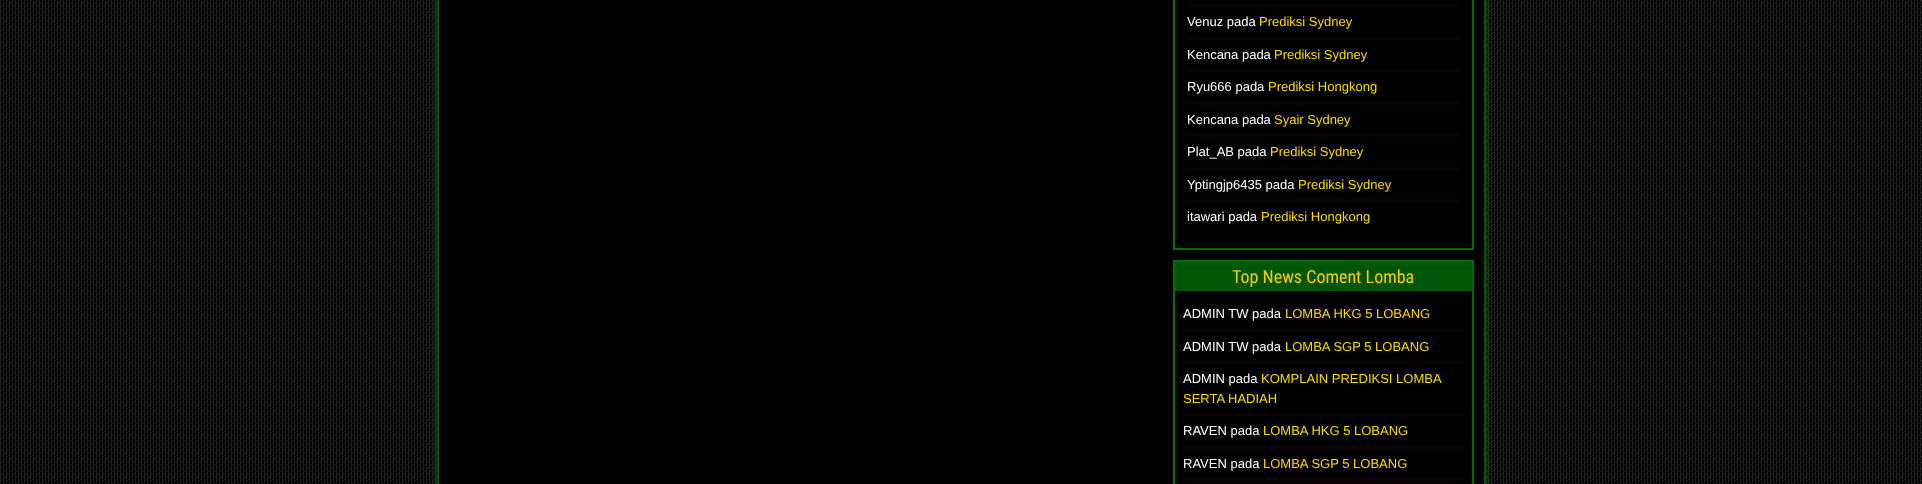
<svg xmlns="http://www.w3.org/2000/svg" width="1922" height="484">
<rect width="100%" height="100%" fill="#000"/>
<image x="0" y="0" width="1922" height="484" href="media/1.png"/>
<rect x="439" y="-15" width="1045" height="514" fill="#199e22" filter="blur(5px)"/>
<rect x="439" width="1045" height="484" fill="#000"/>
<rect x="1174" y="-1" width="299" height="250" fill="none" stroke="#007000" stroke-width="2"/>
<rect x="1187" y="4" width="273" height="3" fill="#0e0303"/>
<rect x="1187" y="37" width="273" height="3" fill="#0e0303"/>
<text x="1187" y="26" style="font-family:Liberation Sans;font-size:13px;fill:#fff">Venuz pada</text>
<text x="1259" y="26" style="font-family:Liberation Sans;font-size:13px;fill:#ffd800">Prediksi Sydney</text>
<rect x="1187" y="69" width="273" height="3" fill="#0e0303"/>
<text x="1187" y="59" style="font-family:Liberation Sans;font-size:13px;fill:#fff">Kencana pada</text>
<text x="1274" y="59" style="font-family:Liberation Sans;font-size:13px;fill:#ffd800">Prediksi Sydney</text>
<rect x="1187" y="102" width="273" height="3" fill="#0e0303"/>
<text x="1187" y="91" style="font-family:Liberation Sans;font-size:13px;fill:#fff">Ryu666 pada</text>
<text x="1268" y="91" style="font-family:Liberation Sans;font-size:13px;fill:#ffd800">Prediksi Hongkong</text>
<rect x="1187" y="134" width="273" height="3" fill="#0e0303"/>
<text x="1187" y="124" style="font-family:Liberation Sans;font-size:13px;fill:#fff">Kencana pada</text>
<text x="1274" y="124" style="font-family:Liberation Sans;font-size:13px;fill:#ffd800">Syair Sydney</text>
<rect x="1187" y="167" width="273" height="3" fill="#0e0303"/>
<text x="1187" y="156" style="font-family:Liberation Sans;font-size:13px;fill:#fff">Plat_AB pada</text>
<text x="1270" y="156" style="font-family:Liberation Sans;font-size:13px;fill:#ffd800">Prediksi Sydney</text>
<rect x="1187" y="199" width="273" height="3" fill="#0e0303"/>
<text x="1187" y="189" style="font-family:Liberation Sans;font-size:13px;fill:#fff">Yptingjp6435 pada</text>
<text x="1298" y="189" style="font-family:Liberation Sans;font-size:13px;fill:#ffd800">Prediksi Sydney</text>
<text x="1187" y="221" style="font-family:Liberation Sans;font-size:13px;fill:#fff">itawari pada</text>
<text x="1261" y="221" style="font-family:Liberation Sans;font-size:13px;fill:#ffd800">Prediksi Hongkong</text>
<rect x="1174" y="261" width="299" height="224" fill="none" stroke="#007000" stroke-width="2"/>
<rect x="1175" y="262" width="297" height="29" fill="#005607"/>
<text x="1232" y="283" style="font-family:Roboto Condensed;font-size:18px;fill:#f9cc00">Top News Coment Lomba</text>
<rect x="1183" y="329" width="281" height="3" fill="#0e0303"/>
<text x="1183" y="318" style="font-family:Liberation Sans;font-size:13px;fill:#fff">ADMIN TW pada</text>
<text x="1285" y="318" style="font-family:Liberation Sans;font-size:13px;fill:#ffd800">LOMBA HKG 5 LOBANG</text>
<rect x="1183" y="361" width="281" height="3" fill="#0e0303"/>
<text x="1183" y="351" style="font-family:Liberation Sans;font-size:13px;fill:#fff">ADMIN TW pada</text>
<text x="1285" y="351" style="font-family:Liberation Sans;font-size:13px;fill:#ffd800">LOMBA SGP 5 LOBANG</text>
<rect x="1183" y="413" width="281" height="3" fill="#0e0303"/>
<text x="1183" y="383" style="font-family:Liberation Sans;font-size:13px;fill:#fff">ADMIN pada</text>
<text x="1261" y="383" style="font-family:Liberation Sans;font-size:13px;fill:#ffd800">KOMPLAIN PREDIKSI LOMBA</text>
<text x="1183" y="403" style="font-family:Liberation Sans;font-size:13px;fill:#ffd800">SERTA HADIAH</text>
<rect x="1183" y="446" width="281" height="3" fill="#0e0303"/>
<text x="1183" y="435" style="font-family:Liberation Sans;font-size:13px;fill:#fff">RAVEN pada</text>
<text x="1263" y="435" style="font-family:Liberation Sans;font-size:13px;fill:#ffd800">LOMBA HKG 5 LOBANG</text>
<rect x="1183" y="478" width="281" height="3" fill="#0e0303"/>
<text x="1183" y="468" style="font-family:Liberation Sans;font-size:13px;fill:#fff">RAVEN pada</text>
<text x="1263" y="468" style="font-family:Liberation Sans;font-size:13px;fill:#ffd800">LOMBA SGP 5 LOBANG</text>
</svg>
